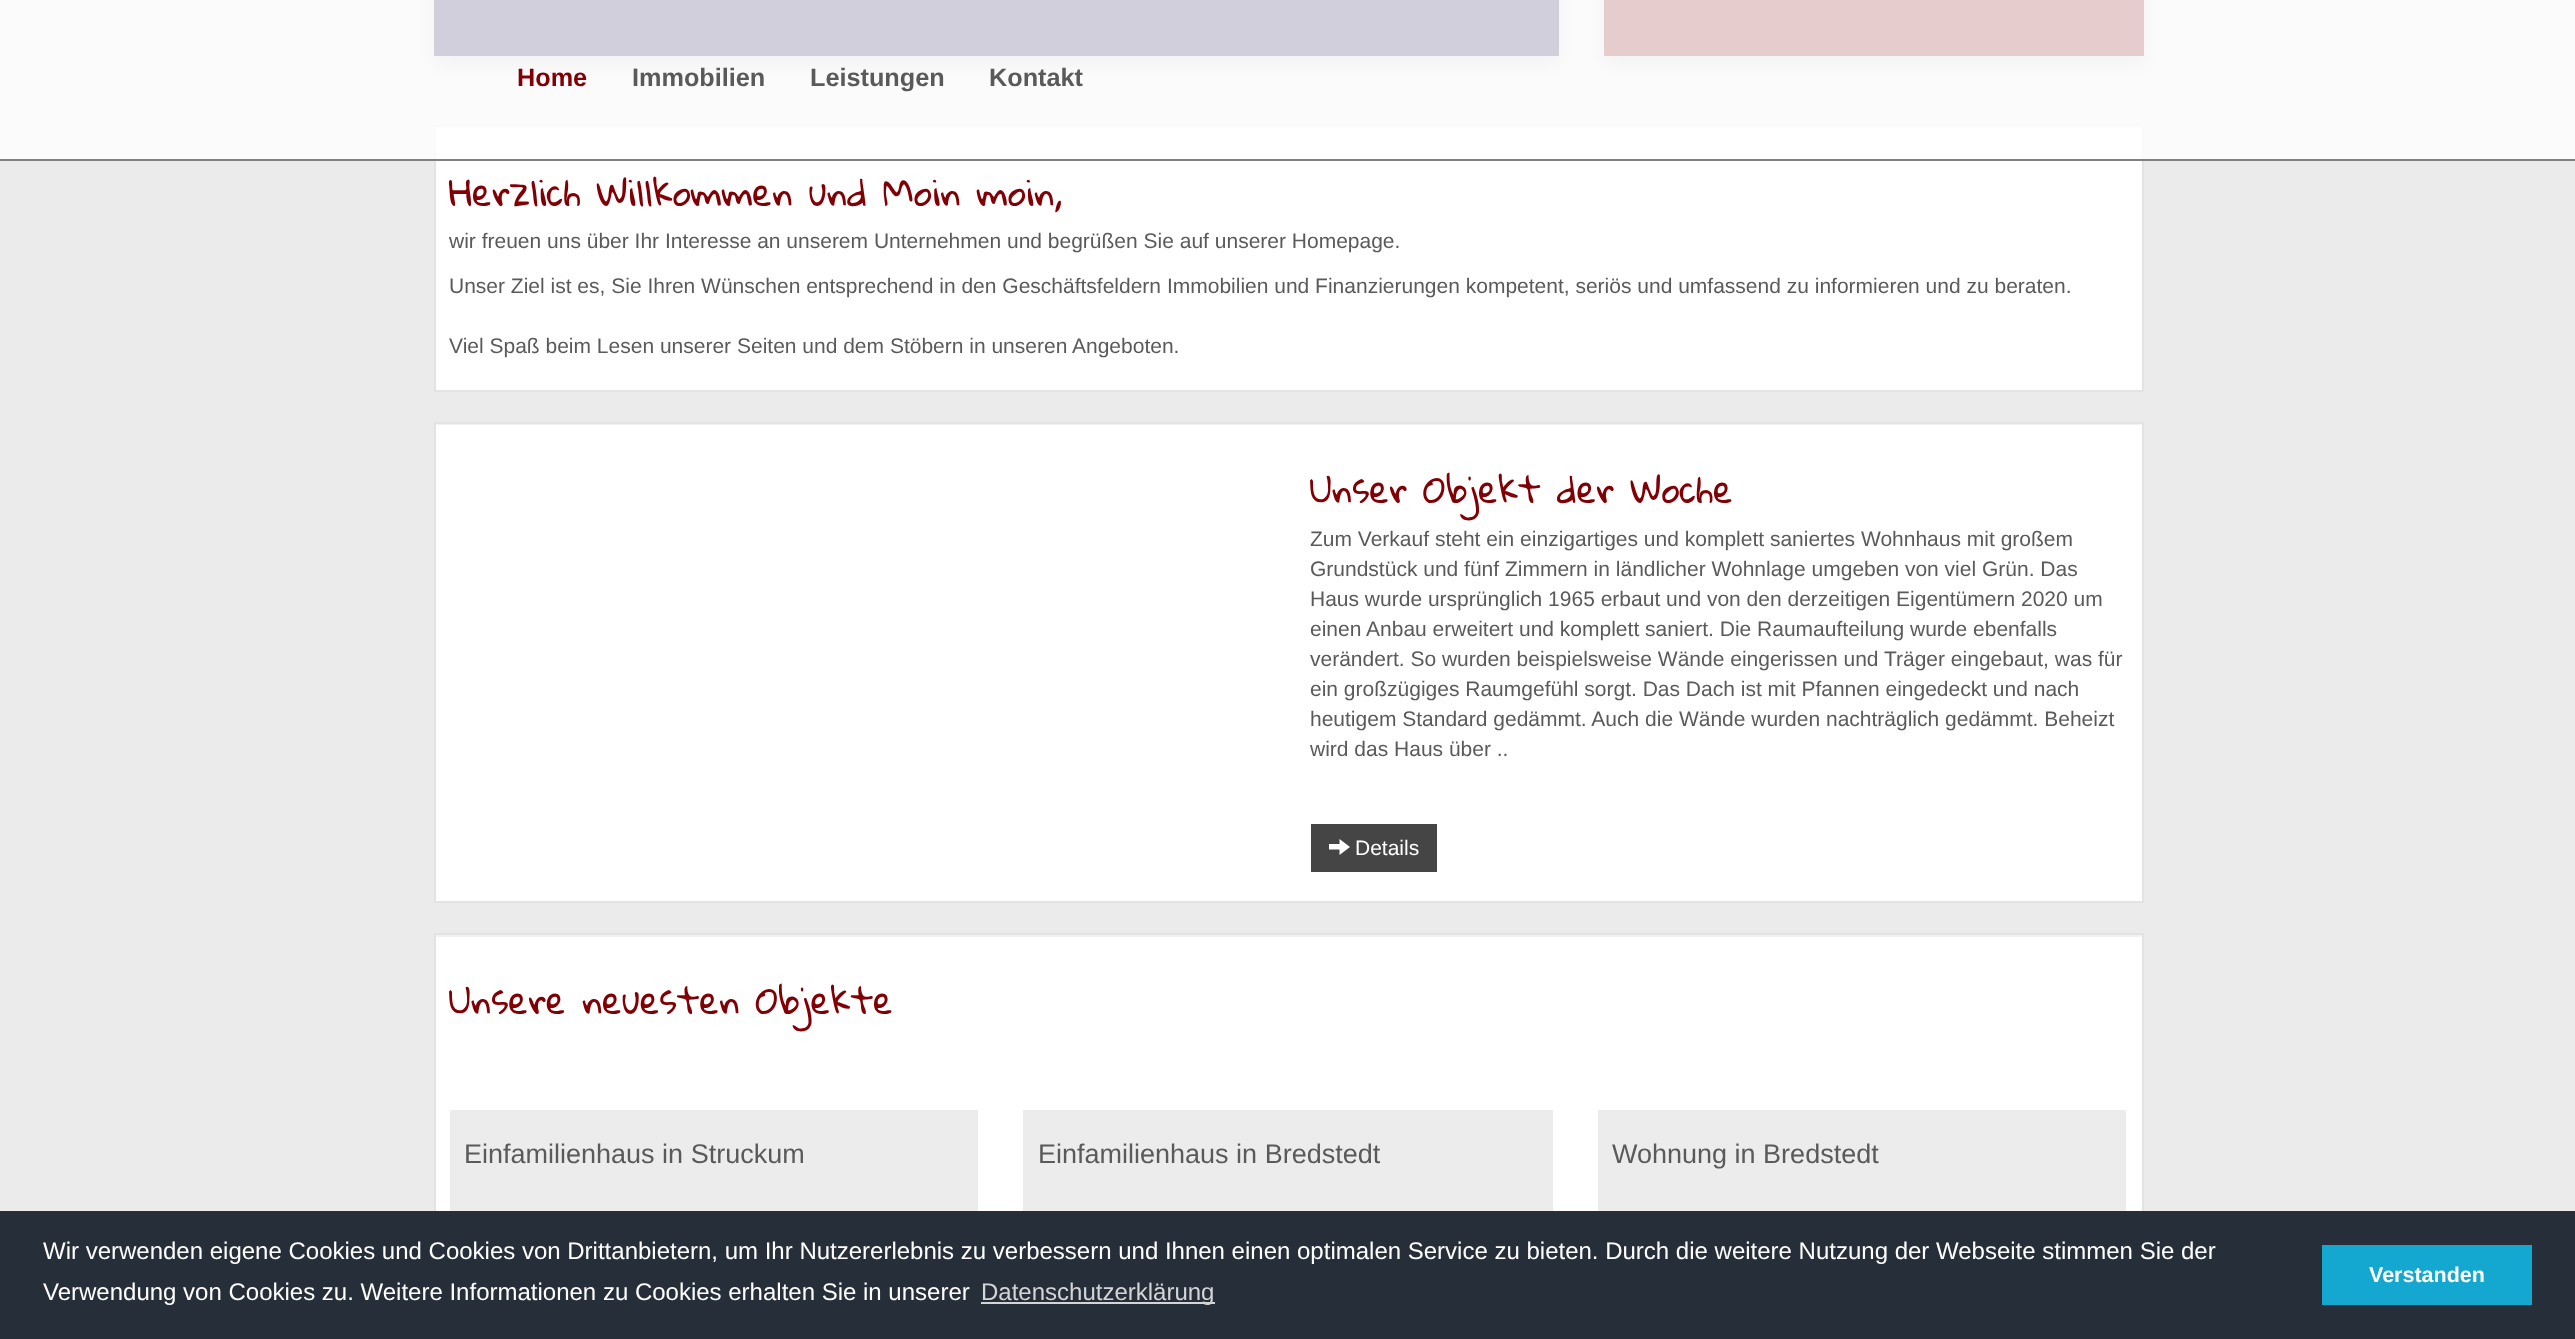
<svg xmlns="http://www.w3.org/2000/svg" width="2575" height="1339">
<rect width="100%" height="100%" fill="#ebebec"/>
<rect x="434" y="-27" width="1125" height="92" fill="#0000002e" filter="blur(9px)"/>
<rect x="434" width="1125" height="56" fill="#140f4b"/>
<rect x="1604" y="-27" width="540" height="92" fill="#0000002e" filter="blur(9px)"/>
<rect x="1604" width="540" height="56" fill="#800005"/>
<rect x="436" y="128" width="1706" height="262" fill="#fff"/>
<rect x="435" y="127" width="1707" height="1" fill="#f2f2f2"/>
<rect x="435" y="126" width="1708" height="265" fill="none" stroke="#e3e3e3" stroke-width="2"/>
<rect width="2575" height="159" fill="#ffffffcc"/>
<rect y="159" width="2575" height="2" fill="#818181"/>
<text x="517" y="86" style="font-family:Liberation Sans;font-size:25.25px;font-weight:bold;fill:#800005">Home</text>
<text x="632" y="86" style="font-family:Liberation Sans;font-size:25.25px;font-weight:bold;fill:#5a5a5a">Immobilien</text>
<text x="810" y="86" style="font-family:Liberation Sans;font-size:25.25px;font-weight:bold;fill:#5a5a5a">Leistungen</text>
<text x="989" y="86" style="font-family:Liberation Sans;font-size:25.25px;font-weight:bold;fill:#5a5a5a">Kontakt</text>
<text x="449" y="206" style="font-family:Gloria Hallelujah;font-size:36px;fill:#800005">Herzlich Willkommen und Moin moin,</text>
<text x="449" y="248" style="font-family:Liberation Sans;font-size:21px;fill:#5a5a5a">wir freuen uns über Ihr Interesse an unserem Unternehmen und begrüßen Sie auf unserer Homepage.</text>
<text x="449" y="293" style="font-family:Liberation Sans;font-size:21px;fill:#5a5a5a">Unser Ziel ist es, Sie Ihren Wünschen entsprechend in den Geschäftsfeldern Immobilien und Finanzierungen kompetent, seriös und umfassend zu informieren und zu beraten.</text>
<text x="449" y="353" style="font-family:Liberation Sans;font-size:21px;fill:#5a5a5a">Viel Spaß beim Lesen unserer Seiten und dem Stöbern in unseren Angeboten.</text>
<rect x="436" y="425" width="1706" height="476" fill="#fff"/>
<rect x="435" y="424" width="1707" height="1" fill="#f2f2f2"/>
<rect x="435" y="423" width="1708" height="479" fill="none" stroke="#e3e3e3" stroke-width="2"/>
<text x="1310" y="503" style="font-family:Gloria Hallelujah;font-size:36px;fill:#800005">Unser Objekt der Woche</text>
<text x="1310" y="546" style="font-family:Liberation Sans;font-size:21px;fill:#5a5a5a">Zum Verkauf steht ein einzigartiges und komplett saniertes Wohnhaus mit großem</text>
<text x="1310" y="576" style="font-family:Liberation Sans;font-size:21px;fill:#5a5a5a">Grundstück und fünf Zimmern in ländlicher Wohnlage umgeben von viel Grün. Das</text>
<text x="1310" y="606" style="font-family:Liberation Sans;font-size:21px;fill:#5a5a5a">Haus wurde ursprünglich 1965 erbaut und von den derzeitigen Eigentümern 2020 um</text>
<text x="1310" y="636" style="font-family:Liberation Sans;font-size:21px;fill:#5a5a5a">einen Anbau erweitert und komplett saniert. Die Raumaufteilung wurde ebenfalls</text>
<text x="1310" y="666" style="font-family:Liberation Sans;font-size:21px;fill:#5a5a5a">verändert. So wurden beispielsweise Wände eingerissen und Träger eingebaut, was für</text>
<text x="1310" y="696" style="font-family:Liberation Sans;font-size:21px;fill:#5a5a5a">ein großzügiges Raumgefühl sorgt. Das Dach ist mit Pfannen eingedeckt und nach</text>
<text x="1310" y="726" style="font-family:Liberation Sans;font-size:21px;fill:#5a5a5a">heutigem Standard gedämmt. Auch die Wände wurden nachträglich gedämmt. Beheizt</text>
<text x="1310" y="756" style="font-family:Liberation Sans;font-size:21px;fill:#5a5a5a">wird das Haus über ..</text>
<rect x="1311" y="824" width="126" height="48" fill="#454545"/>
<path d="M1329 849.5v-5.5h10.5v-5l10.5 8l-10.5 8v-5.5z" fill="#fff"/>
<text x="1355" y="855" style="font-family:Liberation Sans;font-size:21px;fill:#fff">Details</text>
<rect x="436" y="937" width="1706" height="274" fill="#fff"/>
<rect x="435" y="935" width="1707" height="2" fill="#f2f2f2"/>
<rect x="435" y="934" width="1708" height="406" fill="none" stroke="#e3e3e3" stroke-width="2"/>
<text x="449" y="1014" style="font-family:Gloria Hallelujah;font-size:36px;fill:#800005">Unsere neuesten Objekte</text>
<rect x="450" y="1110" width="528" height="101" fill="#ececec"/>
<text x="464" y="1163" style="font-family:Liberation Sans;font-size:27px;fill:#5a5a5a">Einfamilienhaus in Struckum</text>
<rect x="1023" y="1110" width="530" height="101" fill="#ececec"/>
<text x="1038" y="1163" style="font-family:Liberation Sans;font-size:27px;fill:#5a5a5a">Einfamilienhaus in Bredstedt</text>
<rect x="1598" y="1110" width="528" height="101" fill="#ececec"/>
<text x="1612" y="1163" style="font-family:Liberation Sans;font-size:27px;fill:#5a5a5a">Wohnung in Bredstedt</text>
<rect y="1211" width="2575" height="128" fill="#252e39"/>
<text x="43" y="1259" style="font-family:Liberation Sans;font-size:24px;fill:#fff">Wir verwenden eigene Cookies und Cookies von Drittanbietern, um Ihr Nutzererlebnis zu verbessern und Ihnen einen optimalen Service zu bieten. Durch die weitere Nutzung der Webseite stimmen Sie der</text>
<text x="43" y="1300" style="font-family:Liberation Sans;font-size:24px;fill:#fff">Verwendung von Cookies zu. Weitere Informationen zu Cookies erhalten Sie in unserer</text>
<rect x="981" y="1302" width="234" height="2" fill="#d3d5d7"/>
<text x="981" y="1300" style="font-family:Liberation Sans;font-size:24px;fill:#d3d5d7">Datenschutzerklärung</text>
<rect x="2322" y="1245" width="210" height="60" fill="#14a7d0"/>
<text x="2369" y="1282" style="font-family:Liberation Sans;font-size:21.5px;font-weight:bold;fill:#fff">Verstanden</text>
</svg>
